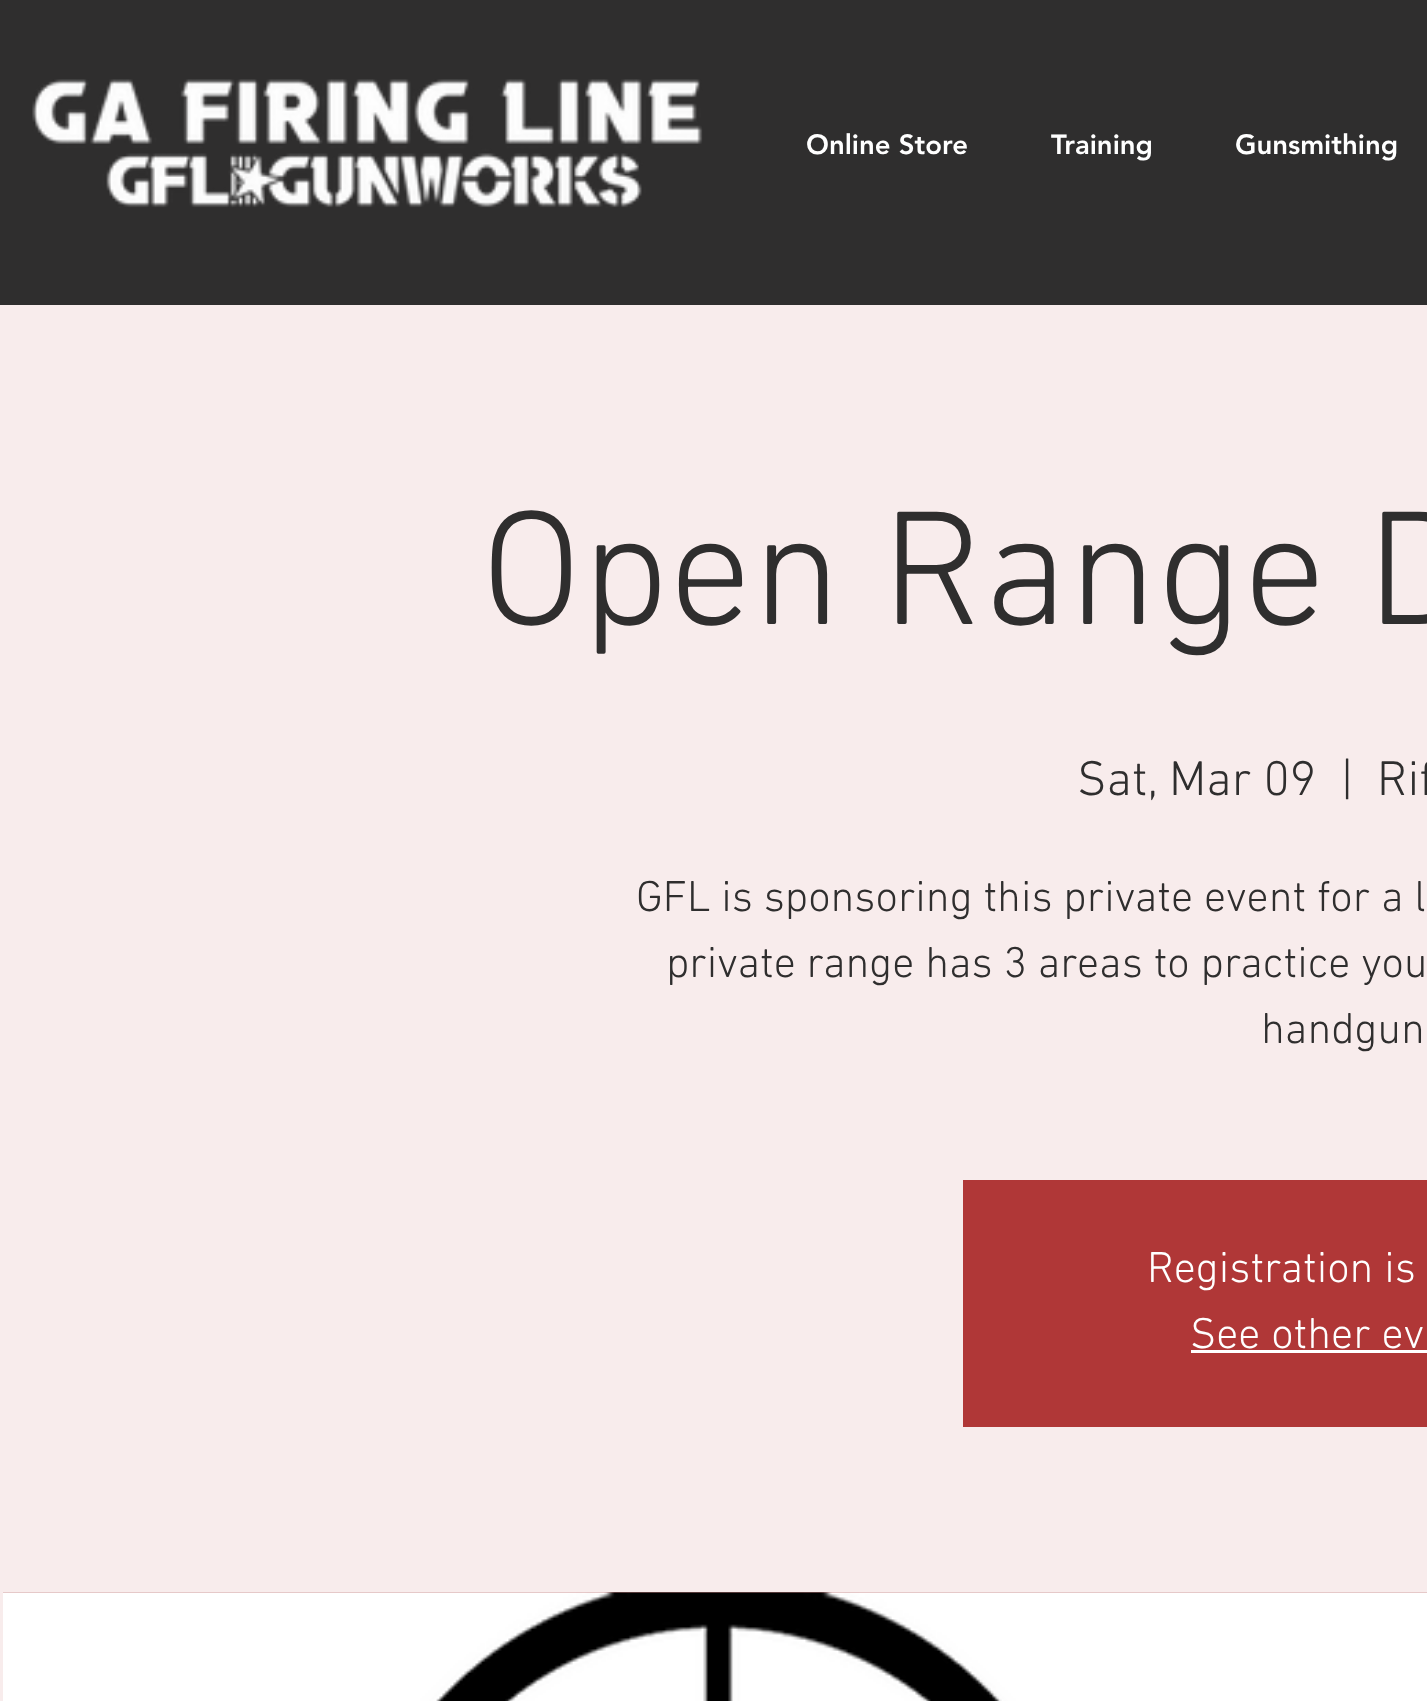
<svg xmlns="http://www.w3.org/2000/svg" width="1427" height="1701">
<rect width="100%" height="100%" fill="#f8ecec"/>
<rect width="1427" height="305" fill="#2f2e2e"/>
<image x="32" y="79" width="671" height="129" href="media/1.png"/>
<text x="806" y="154" style="font-family:'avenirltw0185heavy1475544';font-size:27.5px;font-weight:900;fill:#fff">Online Store</text>
<text x="1051" y="154" style="font-family:'avenirltw0185heavy1475544';font-size:27.5px;font-weight:900;fill:#fff">Training</text>
<text x="1235" y="154" style="font-family:'avenirltw0185heavy1475544';font-size:27.5px;font-weight:900;fill:#fff">Gunsmithing</text>
<text x="481" y="624" style="font-family:'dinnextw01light';font-size:165px;font-weight:300;fill:#2f2e2e">Open Range D</text>
<text x="1077" y="795" style="font-family:'dinnextw01light';font-size:49.5px;font-weight:300;fill:#2f2e2e">Sat, Mar 09</text>
<text x="1341" y="795" style="font-family:'dinnextw01light';font-size:49.5px;font-weight:300;fill:#2f2e2e">|</text>
<text x="1377" y="795" style="font-family:'dinnextw01light';font-size:49.5px;font-weight:300;fill:#2f2e2e">Rif</text>
<text x="636" y="911" style="font-family:'dinnextw01light';font-size:44px;font-weight:300;fill:#2f2e2e">GFL is sponsoring this private event for a l</text>
<text x="666" y="977" style="font-family:'dinnextw01light';font-size:44px;font-weight:300;fill:#2f2e2e">private range has 3 areas to practice you</text>
<text x="1261" y="1043" style="font-family:'dinnextw01light';font-size:44px;font-weight:300;fill:#2f2e2e">handgun</text>
<rect x="963" y="1180" width="464" height="247" fill="#b03737"/>
<text x="1147" y="1282" style="font-family:'dinnextw01light';font-size:44px;font-weight:300;fill:#fff">Registration is</text>
<text x="1190" y="1348" style="font-family:'dinnextw01light';font-size:44px;font-weight:300;fill:#fff">See other ev</text>
<rect x="1191" y="1350" width="236" height="3" fill="#fff"/>
<rect x="3" y="1592" width="1424" height="1" fill="#c58383"/>
<image x="3" y="1592" width="1424" height="109" href="media/2.png"/>
</svg>
